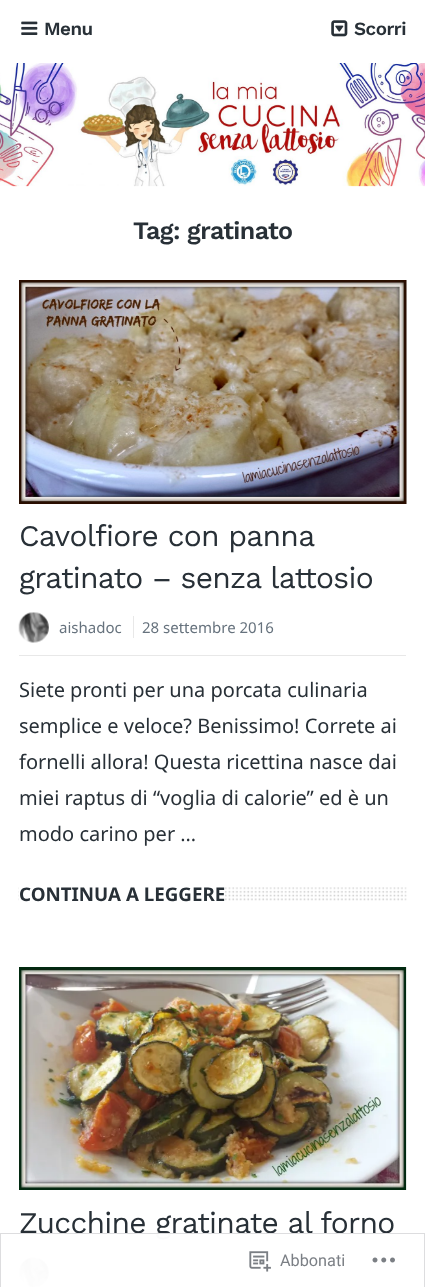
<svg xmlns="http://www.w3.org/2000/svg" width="425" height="1287">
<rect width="100%" height="100%" fill="#fff"/>
<image x="0" y="63" width="425" height="124" href="media/3.png"/>
<rect x="1" width="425" height="63" fill="#00000040" filter="blur(0.5px)"/>
<rect width="425" height="63" fill="#fff"/>
<image x="21" y="21" width="17" height="14" href="media/1.png"/>
<text x="44" y="35" style="font-family:Work Sans;font-size:18.75px;font-weight:600;letter-spacing:-0.5px;fill:#283037">Menu</text>
<image x="331" y="20" width="17" height="17" href="media/2.png"/>
<text x="354" y="35" style="font-family:Work Sans;font-size:18.75px;font-weight:600;letter-spacing:-0.5px;fill:#283037">Scorri</text>
<text x="133" y="239" style="font-family:Work Sans;font-size:25px;font-weight:600;letter-spacing:-0.6px;fill:#283037">Tag: gratinato</text>
<image x="19" y="280" width="388" height="224" href="media/4.png"/>
<text x="19" y="546" style="font-family:Work Sans;font-size:30px;letter-spacing:-0.75px;fill:#283037">Cavolfiore con panna</text>
<text x="19" y="588" style="font-family:Work Sans;font-size:30px;letter-spacing:-0.75px;fill:#283037">gratinato – senza lattosio</text>
<rect x="19" y="655" width="387" height="1" fill="#e8e8e8"/>
<image x="18" y="612" width="31" height="31" href="media/5.png"/>
<text x="59" y="633" style="font-family:Noto Sans;font-size:15px;fill:#66727d">aishadoc</text>
<rect x="133" y="616" width="1" height="22" fill="#e8e8e8"/>
<text x="142" y="633" style="font-family:Noto Sans;font-size:15px;fill:#66727d">28 settembre 2016</text>
<text x="19" y="697" style="font-family:Noto Sans;font-size:20px;fill:#283037">Siete pronti per una porcata culinaria</text>
<text x="19" y="733" style="font-family:Noto Sans;font-size:20px;fill:#283037">semplice e veloce? Benissimo! Correte ai</text>
<text x="19" y="769" style="font-family:Noto Sans;font-size:20px;fill:#283037">fornelli allora! Questa ricettina nasce dai</text>
<text x="19" y="805" style="font-family:Noto Sans;font-size:20px;fill:#283037">miei raptus di “voglia di calorie” ed è un</text>
<text x="19" y="841" style="font-family:Noto Sans;font-size:20px;fill:#283037">modo carino per …</text>
<image x="18" y="887" width="389" height="14" href="media/6.png"/>
<rect x="19" y="887" width="206" height="14" fill="#fff"/>
<text x="19" y="901" style="font-family:Noto Sans;font-size:18.75px;font-weight:bold;fill:#283037">CONTINUA A LEGGERE</text>
<image x="19" y="967" width="388" height="223" href="media/7.png"/>
<text x="19" y="1233" style="font-family:Work Sans;font-size:30px;letter-spacing:-0.75px;fill:#283037">Zucchine gratinate al forno</text>
<image x="18" y="1257" width="31" height="30" href="media/8.png"/>
<rect x="133" y="1261" width="1" height="22" fill="#e8e8e8"/>
<rect x="18" y="1233" width="372" height="54" fill="#fffffffa"/>
<rect x="0.5" y="1233.5" width="424" height="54" fill="none" stroke="#dcdcdefa"/>
<image x="249" y="1251" width="22" height="21" href="media/9.png"/>
<text x="280" y="1266" style="font-family:Roboto;font-size:16.25px;fill:#7b7f85">Abbonati</text>
<image x="372" y="1257" width="23" height="6" href="media/10.png"/>
</svg>
